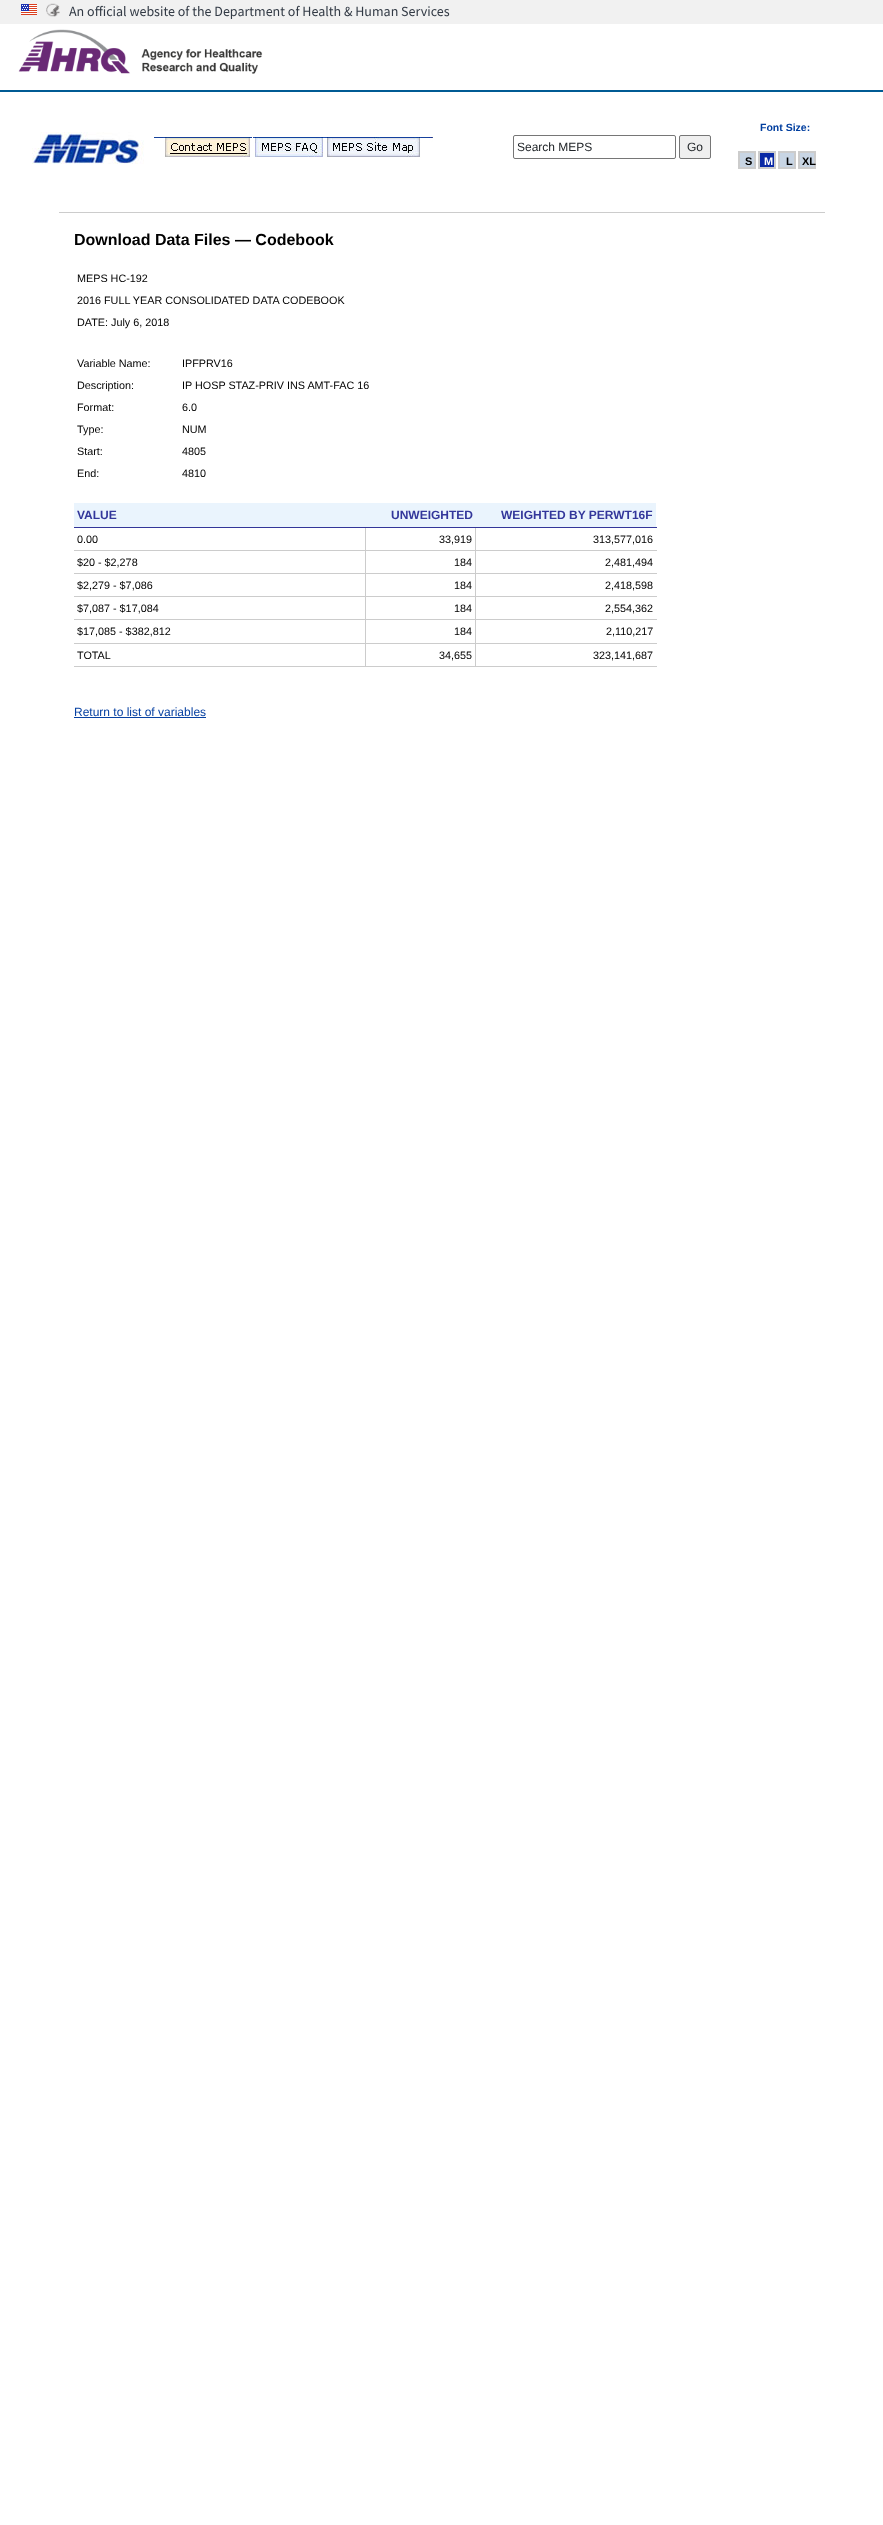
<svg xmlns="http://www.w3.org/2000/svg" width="883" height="2525">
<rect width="100%" height="100%" fill="#fff"/>
<rect width="883" height="24" fill="#f1f1f1"/>
<image x="21" y="4" width="16" height="11" href="media/1.png"/>
<image x="46" y="3" width="14" height="14" href="media/2.png"/>
<text x="69" y="16" style="font-family:Source Sans Pro;font-size:14px;fill:#323a45">An official website of the Department of Health &amp; Human Services</text>
<rect y="90" width="883" height="2" fill="#005b94"/>
<image x="18" y="29" width="245" height="45" href="media/3.png"/>
<text x="760" y="131" style="font-family:Liberation Sans;font-size:10.5px;font-weight:bold;fill:#003e9f">Font Size:</text>
<image x="32" y="132" width="112" height="32" href="media/4.png"/>
<image x="154" y="137" width="98" height="20" href="media/5.png"/>
<image x="253" y="137" width="72" height="20" href="media/6.png"/>
<image x="325" y="137" width="108" height="21" href="media/7.png"/>
<rect x="513.5" y="135.5" width="162" height="23" rx="1.5" fill="none" stroke="#767676"/>
<text x="517" y="151" style="font-family:Liberation Sans;font-size:12px;fill:#212529">Search MEPS</text>
<rect x="679.5" y="135.5" width="31" height="23" rx="1.5" fill="#efefef" stroke="#767676"/>
<text x="687" y="151" style="font-family:Liberation Sans;font-size:12px;fill:#212529">Go</text>
<rect x="739" y="152" width="16" height="16" fill="#c8d5e4" stroke="#ccc" stroke-width="2"/>
<text x="745" y="165" style="font-family:Liberation Sans;font-size:11px;font-weight:bold;fill:#000">S</text>
<rect x="759" y="152" width="16" height="16" fill="#0a29a5" stroke="#ccc" stroke-width="2"/>
<text x="764" y="165" style="font-family:Liberation Sans;font-size:11px;font-weight:bold;fill:#fff">M</text>
<rect x="779" y="152" width="16" height="16" fill="#c8d5e4" stroke="#ccc" stroke-width="2"/>
<text x="786" y="165" style="font-family:Liberation Sans;font-size:11px;font-weight:bold;fill:#000">L</text>
<rect x="799" y="152" width="16" height="16" fill="#c8d5e4" stroke="#ccc" stroke-width="2"/>
<text x="802" y="165" style="font-family:Liberation Sans;font-size:11px;font-weight:bold;fill:#000">XL</text>
<rect x="59" y="212" width="766" height="1" fill="#ccc"/>
<text x="74" y="245" style="font-family:Liberation Sans;font-size:16px;font-weight:bold;fill:#000">Download Data Files — Codebook</text>
<text x="77" y="282" style="font-family:Liberation Sans;font-size:10.8px;fill:#000">MEPS HC-192</text>
<text x="77" y="304" style="font-family:Liberation Sans;font-size:10.8px;fill:#000">2016 FULL YEAR CONSOLIDATED DATA CODEBOOK</text>
<text x="77" y="326" style="font-family:Liberation Sans;font-size:10.8px;fill:#000">DATE: July 6, 2018</text>
<text x="77" y="367" style="font-family:Liberation Sans;font-size:10.8px;fill:#000">Variable Name:</text>
<text x="182" y="367" style="font-family:Liberation Sans;font-size:10.8px;fill:#000">IPFPRV16</text>
<text x="77" y="389" style="font-family:Liberation Sans;font-size:10.8px;fill:#000">Description:</text>
<text x="182" y="389" style="font-family:Liberation Sans;font-size:10.8px;fill:#000">IP HOSP STAZ-PRIV INS AMT-FAC 16</text>
<text x="77" y="411" style="font-family:Liberation Sans;font-size:10.8px;fill:#000">Format:</text>
<text x="182" y="411" style="font-family:Liberation Sans;font-size:10.8px;fill:#000">6.0</text>
<text x="77" y="433" style="font-family:Liberation Sans;font-size:10.8px;fill:#000">Type:</text>
<text x="182" y="433" style="font-family:Liberation Sans;font-size:10.8px;fill:#000">NUM</text>
<text x="77" y="455" style="font-family:Liberation Sans;font-size:10.8px;fill:#000">Start:</text>
<text x="182" y="455" style="font-family:Liberation Sans;font-size:10.8px;fill:#000">4805</text>
<text x="77" y="477" style="font-family:Liberation Sans;font-size:10.8px;fill:#000">End:</text>
<text x="182" y="477" style="font-family:Liberation Sans;font-size:10.8px;fill:#000">4810</text>
<rect x="74" y="503" width="582" height="24" fill="#eaf4fd"/>
<text x="77" y="519" style="font-family:Liberation Sans;font-size:12px;font-weight:bold;fill:#33379b">VALUE</text>
<text x="391" y="519" style="font-family:Liberation Sans;font-size:12px;font-weight:bold;fill:#33379b">UNWEIGHTED</text>
<rect x="475" y="666" width="182" height="1" fill="#ccc"/>
<rect x="475" y="643" width="1" height="24" fill="#ccc"/>
<rect x="475" y="643" width="182" height="1" fill="#ccc"/>
<rect x="475" y="619" width="1" height="25" fill="#ccc"/>
<rect x="475" y="619" width="182" height="1" fill="#ccc"/>
<rect x="475" y="596" width="1" height="24" fill="#ccc"/>
<rect x="475" y="596" width="182" height="1" fill="#ccc"/>
<rect x="475" y="573" width="1" height="24" fill="#ccc"/>
<rect x="475" y="573" width="182" height="1" fill="#ccc"/>
<rect x="475" y="550" width="1" height="24" fill="#ccc"/>
<rect x="475" y="550" width="182" height="1" fill="#ccc"/>
<rect x="475" y="527" width="1" height="24" fill="#ccc"/>
<rect x="365" y="666" width="111" height="1" fill="#ccc"/>
<rect x="365" y="643" width="1" height="24" fill="#ccc"/>
<rect x="365" y="643" width="111" height="1" fill="#ccc"/>
<rect x="365" y="619" width="1" height="25" fill="#ccc"/>
<rect x="365" y="619" width="111" height="1" fill="#ccc"/>
<rect x="365" y="596" width="1" height="24" fill="#ccc"/>
<rect x="365" y="596" width="111" height="1" fill="#ccc"/>
<rect x="365" y="573" width="1" height="24" fill="#ccc"/>
<rect x="365" y="573" width="111" height="1" fill="#ccc"/>
<rect x="365" y="550" width="1" height="24" fill="#ccc"/>
<rect x="365" y="550" width="111" height="1" fill="#ccc"/>
<rect x="365" y="527" width="1" height="24" fill="#ccc"/>
<rect x="74" y="527" width="583" height="1" fill="#333699"/>
<text x="501" y="519" style="font-family:Liberation Sans;font-size:12px;font-weight:bold;fill:#33379b">WEIGHTED BY PERWT16F</text>
<rect x="74" y="550" width="292" height="1" fill="#ccc"/>
<text x="77" y="543" style="font-family:Liberation Sans;font-size:10.8px;fill:#000">0.00</text>
<text x="439" y="543" style="font-family:Liberation Sans;font-size:10.8px;fill:#000">33,919</text>
<text x="593" y="543" style="font-family:Liberation Sans;font-size:10.8px;fill:#000">313,577,016</text>
<rect x="74" y="573" width="292" height="1" fill="#ccc"/>
<text x="77" y="566" style="font-family:Liberation Sans;font-size:10.8px;fill:#000">$20 - $2,278</text>
<text x="454" y="566" style="font-family:Liberation Sans;font-size:10.8px;fill:#000">184</text>
<text x="605" y="566" style="font-family:Liberation Sans;font-size:10.8px;fill:#000">2,481,494</text>
<rect x="74" y="596" width="292" height="1" fill="#ccc"/>
<text x="77" y="589" style="font-family:Liberation Sans;font-size:10.8px;fill:#000">$2,279 - $7,086</text>
<text x="454" y="589" style="font-family:Liberation Sans;font-size:10.8px;fill:#000">184</text>
<text x="605" y="589" style="font-family:Liberation Sans;font-size:10.8px;fill:#000">2,418,598</text>
<rect x="74" y="619" width="292" height="1" fill="#ccc"/>
<text x="77" y="612" style="font-family:Liberation Sans;font-size:10.8px;fill:#000">$7,087 - $17,084</text>
<text x="454" y="612" style="font-family:Liberation Sans;font-size:10.8px;fill:#000">184</text>
<text x="605" y="612" style="font-family:Liberation Sans;font-size:10.8px;fill:#000">2,554,362</text>
<rect x="74" y="643" width="292" height="1" fill="#ccc"/>
<text x="77" y="635" style="font-family:Liberation Sans;font-size:10.8px;fill:#000">$17,085 - $382,812</text>
<text x="454" y="635" style="font-family:Liberation Sans;font-size:10.8px;fill:#000">184</text>
<text x="606" y="635" style="font-family:Liberation Sans;font-size:10.8px;fill:#000">2,110,217</text>
<rect x="74" y="666" width="292" height="1" fill="#ccc"/>
<text x="77" y="659" style="font-family:Liberation Sans;font-size:10.8px;fill:#000">TOTAL</text>
<text x="439" y="659" style="font-family:Liberation Sans;font-size:10.8px;fill:#000">34,655</text>
<text x="593" y="659" style="font-family:Liberation Sans;font-size:10.8px;fill:#000">323,141,687</text>
<text x="74" y="716" style="font-family:Liberation Sans;font-size:12px;fill:#0741a2">Return to list of variables</text>
<rect x="74" y="717" width="132" height="1" fill="#0741a2"/>
</svg>
